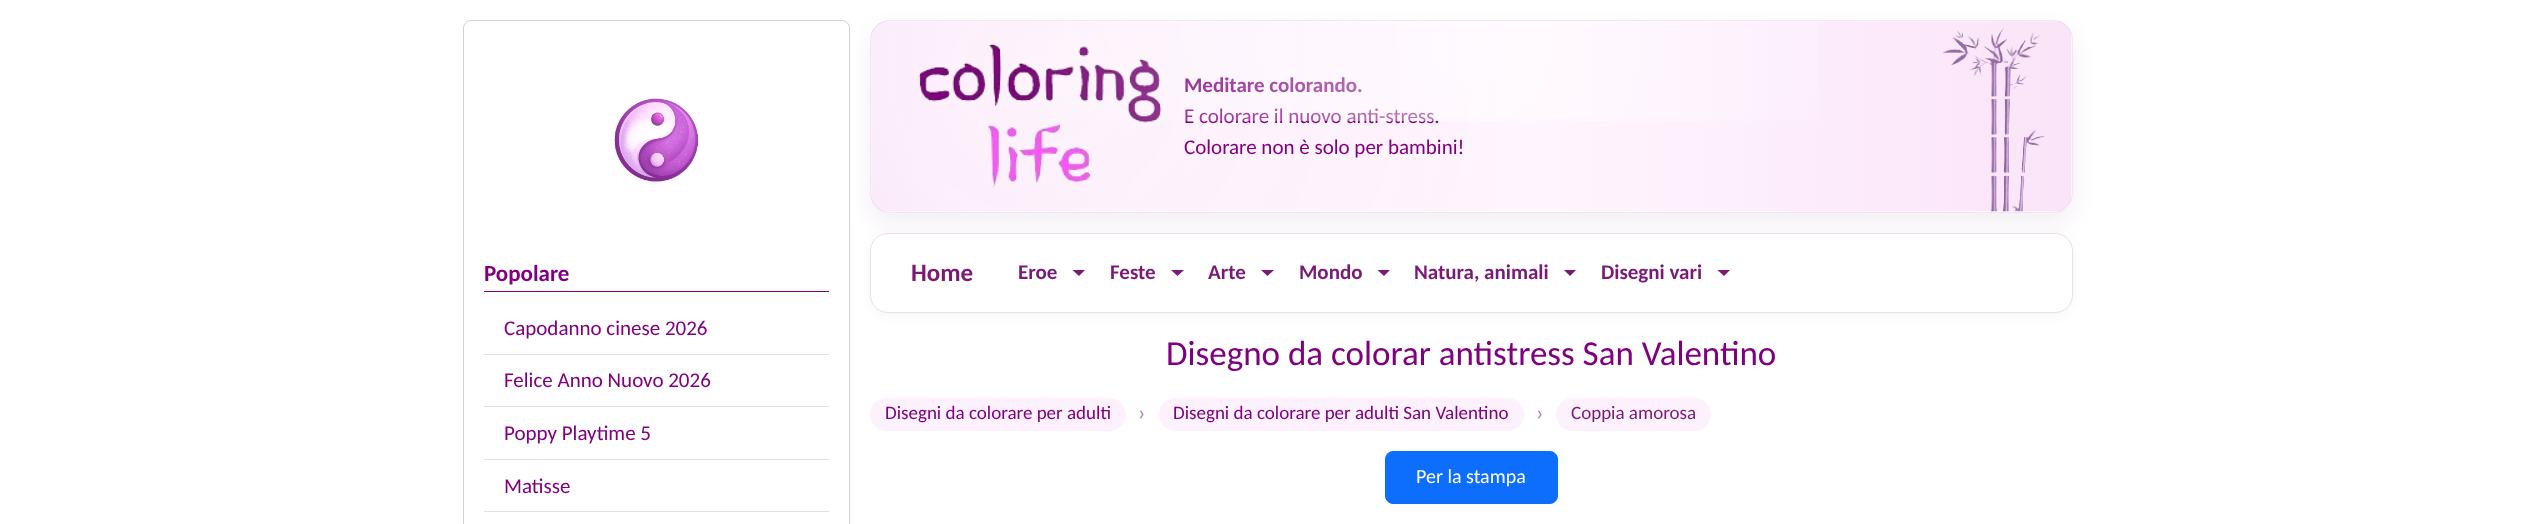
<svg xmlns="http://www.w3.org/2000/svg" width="2535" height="524">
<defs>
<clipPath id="clip1"><path d="M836 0h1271v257h-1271zm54 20h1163c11 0 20 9 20 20v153c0 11-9 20-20 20h-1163c-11 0-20-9-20-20v-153c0-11 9-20 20-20z" clip-rule="evenodd"/></clipPath>
<radialGradient id="g1" gradientUnits="userSpaceOnUse" cx="1471" cy="46" r="704"><stop offset="0" stop-color="#fff" stop-opacity="0.55"/><stop offset="0.65" stop-color="#fff" stop-opacity="0"/></radialGradient>
</defs>
<rect width="100%" height="100%" fill="#fff"/>
<rect x="463.5" y="20.5" width="386" height="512" rx="7.5" fill="none" stroke="#d2d2d2"/>
<image x="603" y="96" width="102" height="97" href="media/1.png"/>
<rect x="484" y="291" width="345" height="1" fill="#800080"/>
<text x="484" y="281" style="font-family:Carlito;font-size:23px;font-weight:bold;fill:#800080">Popolare</text>
<rect x="484" y="354" width="345" height="1" fill="#dee2e6"/>
<text x="504" y="335" style="font-family:Carlito;font-size:21px;fill:#800080">Capodanno cinese 2026</text>
<rect x="484" y="406" width="345" height="1" fill="#dee2e6"/>
<text x="504" y="387" style="font-family:Carlito;font-size:21px;fill:#800080">Felice Anno Nuovo 2026</text>
<rect x="484" y="459" width="345" height="1" fill="#dee2e6"/>
<text x="504" y="440" style="font-family:Carlito;font-size:21px;fill:#800080">Poppy Playtime 5</text>
<rect x="484" y="511" width="345" height="1" fill="#dee2e6"/>
<text x="504" y="493" style="font-family:Carlito;font-size:21px;fill:#800080">Matisse</text>
<g clip-path="url(#clip1)">
<rect x="870" y="30" width="1203" height="193" rx="20" fill="#500a5012" filter="blur(11px)"/>
</g>
<image x="871" y="21" width="1201" height="191" href="media/2.png"/>
<rect x="870.5" y="20.5" width="1202" height="192" rx="19.5" fill="none" stroke="#6f1a6e1a"/>
<image x="918" y="43" width="244" height="145" href="media/3.png"/>
<text x="1184" y="92" style="font-family:Carlito;font-size:21px;font-weight:bold;fill:#800080">Meditare colorando.</text>
<text x="1184" y="123" style="font-family:Carlito;font-size:21px;fill:#800080">E colorare il nuovo anti-stress.</text>
<rect x="1031" y="21" width="788" height="100" fill="url(#g1)"/>
<text x="1184" y="154" style="font-family:Carlito;font-size:21px;fill:#800080">Colorare non è solo per bambini!</text>
<rect x="870" y="235" width="1203" height="80" rx="18" fill="#0000000a" filter="blur(6px)"/>
<rect x="870.5" y="233.5" width="1202" height="79" rx="17.5" fill="#fff" stroke="#ebdfeb"/>
<text x="911" y="281" style="font-family:Carlito;font-size:25px;font-weight:bold;fill:#7a1976">Home</text>
<text x="1018" y="279" style="font-family:Carlito;font-size:21px;font-weight:bold;fill:#7a1976">Eroe</text>
<path d="M1072.5 270h12.5l-6 6z" fill="#7a1976"/>
<text x="1110" y="279" style="font-family:Carlito;font-size:21px;font-weight:bold;fill:#7a1976">Feste</text>
<path d="M1171 270h13l-6.5 6z" fill="#7a1976"/>
<text x="1208" y="279" style="font-family:Carlito;font-size:21px;font-weight:bold;fill:#7a1976">Arte</text>
<path d="M1261 270h13l-6.5 6z" fill="#7a1976"/>
<text x="1299" y="279" style="font-family:Carlito;font-size:21px;font-weight:bold;fill:#7a1976">Mondo</text>
<path d="M1377.5 270h12.5l-6 6z" fill="#7a1976"/>
<text x="1414" y="279" style="font-family:Carlito;font-size:21px;font-weight:bold;fill:#7a1976">Natura, animali</text>
<path d="M1564 270h12l-6 6z" fill="#7a1976"/>
<text x="1601" y="279" style="font-family:Carlito;font-size:21px;font-weight:bold;fill:#7a1976">Disegni vari</text>
<path d="M1717.5 270h12.5l-6 6z" fill="#7a1976"/>
<text x="1166" y="365" style="font-family:Carlito;font-size:35px;fill:#800080">Disegno da colorar antistress San Valentino</text>
<rect x="870" y="398" width="256" height="33" rx="16.5" fill="#fcf1fc"/>
<text x="885" y="419" style="font-family:Carlito;font-size:19px;fill:#800080">Disegni da colorare per adulti</text>
<text x="1138" y="420" style="font-family:Carlito;font-size:22px;fill:#b681b4">›</text>
<rect x="1159" y="398" width="365" height="33" rx="16.5" fill="#fcf1fc"/>
<text x="1173" y="419" style="font-family:Carlito;font-size:19px;fill:#800080">Disegni da colorare per adulti San Valentino</text>
<text x="1536" y="420" style="font-family:Carlito;font-size:22px;fill:#b681b4">›</text>
<rect x="1556" y="398" width="155" height="33" rx="16.5" fill="#fcf1fc"/>
<text x="1571" y="419" style="font-family:Carlito;font-size:19px;fill:#7a1976">Coppia amorosa</text>
<rect x="1385.5" y="451.5" width="172" height="52" rx="7.5" fill="#0d6efd" stroke="#0d6efd"/>
<text x="1416" y="483" style="font-family:Carlito;font-size:20px;fill:#fff">Per la stampa</text>
</svg>
